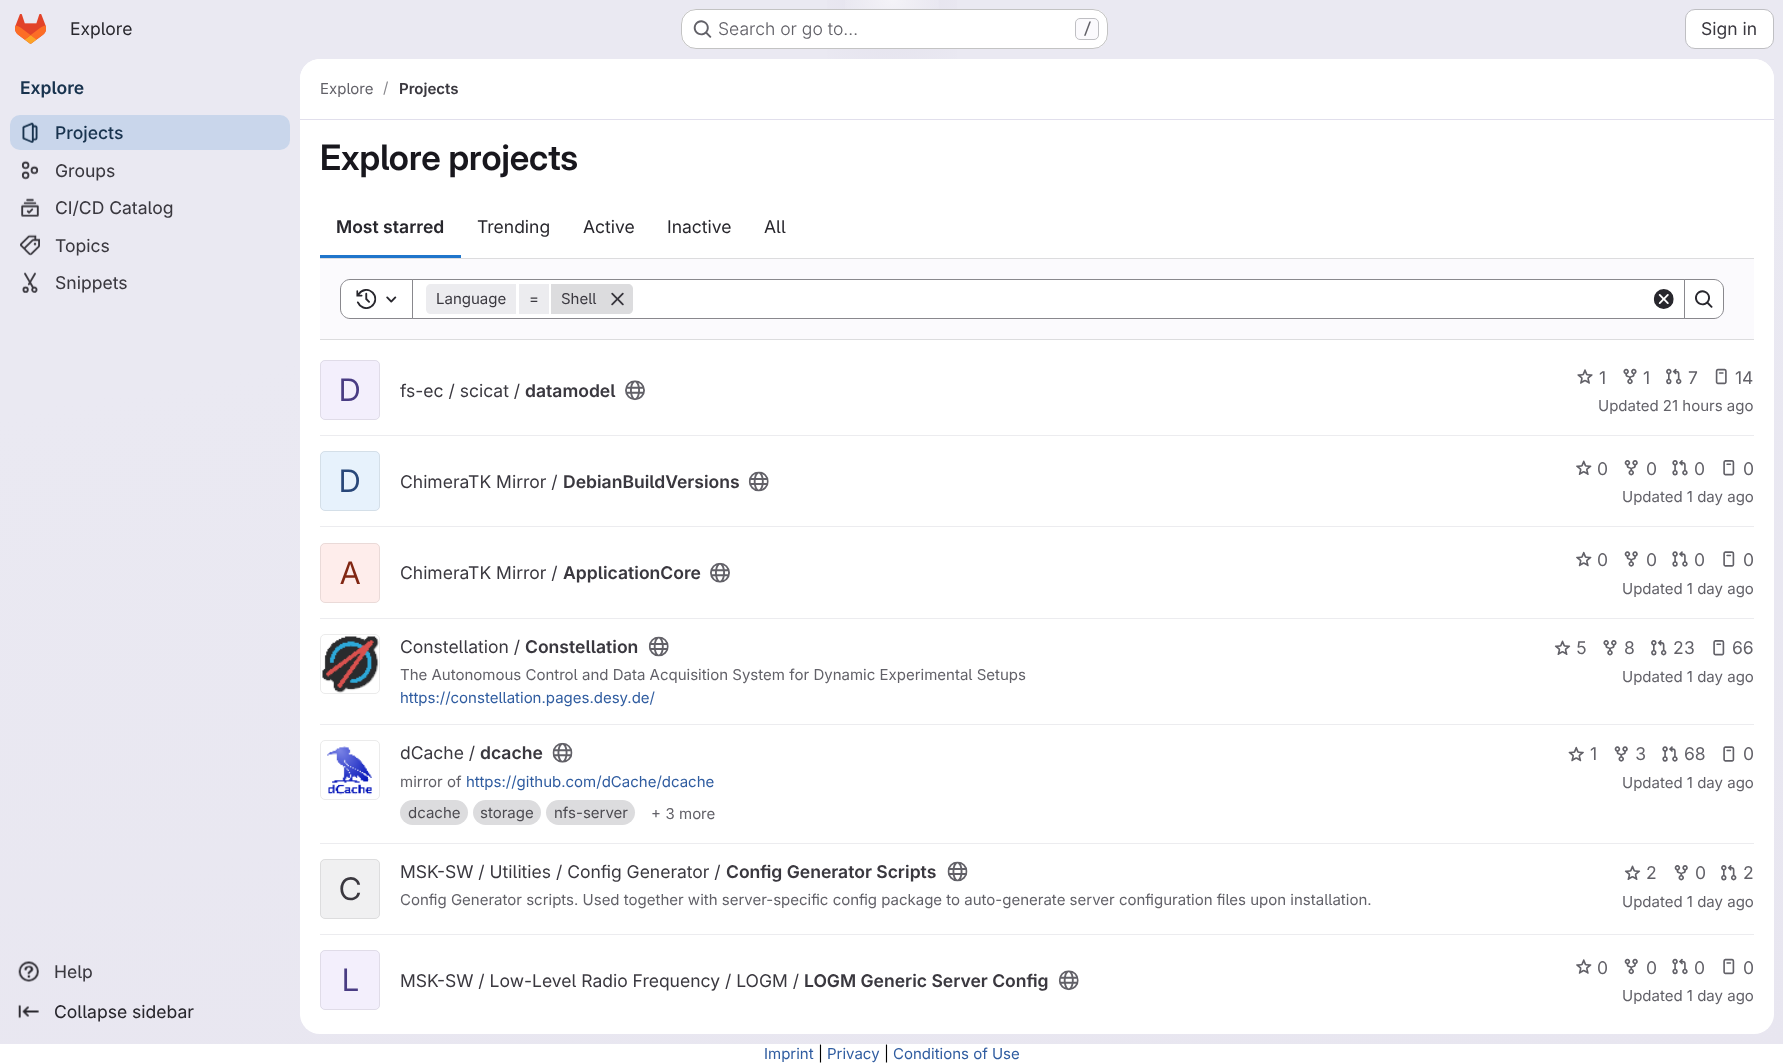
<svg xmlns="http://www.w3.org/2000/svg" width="1783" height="1064">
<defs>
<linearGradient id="g1" gradientUnits="userSpaceOnUse" x1="1010" y1="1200" x2="774" y2="-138"><stop offset="0" stop-color="#e8e6f0"/><stop offset="0.7" stop-color="#eae9f2"/></linearGradient>
<radialGradient id="g2" gradientUnits="userSpaceOnUse" cx="0" cy="0" r="1" gradientTransform="matrix(892 0 0 1065 892 -1.2)"><stop offset="0" stop-color="#e4e2ed"/><stop offset="0.1" stop-color="#e4e2ed" stop-opacity="0"/></radialGradient>
<radialGradient id="g3" gradientUnits="userSpaceOnUse" cx="0" cy="0" r="1" gradientTransform="matrix(892 0 0 1065 892 -1.2)"><stop offset="0" stop-color="#e4e2ec"/><stop offset="0.07" stop-color="#e4e2ec" stop-opacity="0"/></radialGradient>
<radialGradient id="g4" gradientUnits="userSpaceOnUse" cx="892" cy="-1.2" r="1389"><stop offset="0" stop-color="#fff" stop-opacity="0.6"/><stop offset="0.04" stop-color="#fff" stop-opacity="0"/></radialGradient>
</defs>
<rect width="100%" height="100%" fill="#fff"/>
<rect width="1783" height="1044" fill="url(#g1)"/>
<rect x="827" width="130" height="59" fill="url(#g2)"/>
<rect x="879" y="9" width="26" height="3" fill="url(#g3)"/>
<rect x="845" width="94" height="46" fill="url(#g4)"/>
<image x="15" y="14" width="31" height="30" href="media/1.png"/>
<text x="70" y="35" style="font-family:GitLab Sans;font-size:17.5px;fill:#28272d">Explore</text>
<rect x="681" y="9" width="427" height="40" rx="15" fill="#fff"/>
<rect x="681.5" y="9.5" width="426" height="39" rx="14.5" fill="none" stroke="#0505063d"/>
<image x="693" y="20" width="19" height="18" href="media/2.png"/>
<text x="718" y="35" style="font-family:GitLab Sans;font-size:17.5px;font-weight:300;fill:#626168">Search or go to…</text>
<rect x="1075.5" y="18.5" width="23" height="21" rx="4.5" fill="#fbfafd" stroke="#bfbfc3"/>
<text x="1083" y="34" style="font-family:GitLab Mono;font-size:15px;font-weight:500;fill:#626168">/</text>
<rect x="1685.5" y="9.5" width="88" height="39" rx="9.5" fill="#fff" stroke="#bfbfc3"/>
<text x="1701" y="35" style="font-family:GitLab Sans;font-size:17.5px;fill:#3a383f">Sign in</text>
<text x="20" y="94" style="font-family:'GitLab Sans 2';font-size:17.5px;font-weight:600;fill:#18334e">Explore</text>
<rect x="10" y="115" width="280" height="35" rx="10" fill="#c9d6eb"/>
<image x="22" y="122" width="16" height="21" href="media/3.png"/>
<text x="55" y="139" style="font-family:GitLab Sans;font-size:17.5px;font-weight:500;fill:#18334e">Projects</text>
<image x="21" y="160" width="18" height="20" href="media/4.png"/>
<text x="55" y="177" style="font-family:'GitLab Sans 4';font-size:17.5px;fill:#3a383f">Groups</text>
<image x="21" y="198" width="18" height="19" href="media/5.png"/>
<text x="55" y="214" style="font-family:'GitLab Sans 4';font-size:17.5px;fill:#3a383f">CI/CD Catalog</text>
<image x="20" y="234" width="20" height="22" href="media/6.png"/>
<text x="55" y="252" style="font-family:'GitLab Sans 4';font-size:17.5px;fill:#3a383f">Topics</text>
<image x="22" y="272" width="16" height="21" href="media/7.png"/>
<text x="55" y="289" style="font-family:'GitLab Sans 4';font-size:17.5px;fill:#3a383f">Snippets</text>
<image x="18" y="961" width="21" height="21" href="media/8.png"/>
<text x="54" y="978" style="font-family:'GitLab Sans 4';font-size:17.5px;fill:#3a383f">Help</text>
<image x="18" y="1004" width="21" height="15" href="media/9.png"/>
<text x="54" y="1018" style="font-family:'GitLab Sans 4';font-size:17.5px;fill:#28272d">Collapse sidebar</text>
<rect x="300" y="59" width="1474" height="975" rx="20" fill="#fff"/>
<path d="M320 59h1434c11 0 20 9 20 20v41h-1474v-41c0-11 9-20 20-20z" fill="#fff"/>
<rect x="300" y="119" width="1474" height="1" fill="#e1dfec"/>
<text x="320" y="94" style="font-family:GitLab Sans;font-size:15px;fill:#626168">Explore</text>
<text x="383" y="93" style="font-family:GitLab Sans;font-size:15px;fill:#89888d">/</text>
<text x="399" y="94" style="font-family:'GitLab Sans 2';font-size:15px;font-weight:600;fill:#3a383f">Projects</text>
<text x="320" y="170" style="font-family:GitLab Sans;font-size:35px;font-weight:600;fill:#18171d">Explore projects</text>
<text x="336" y="233" style="font-family:'GitLab Sans 2';font-size:17.5px;font-weight:600;fill:#28272d">Most starred</text>
<rect x="320" y="255" width="141" height="3" fill="#1f75cb"/>
<text x="477" y="233" style="font-family:GitLab Sans;font-size:17.5px;fill:#28272d">Trending</text>
<text x="583" y="233" style="font-family:GitLab Sans;font-size:17.5px;fill:#28272d">Active</text>
<text x="667" y="233" style="font-family:GitLab Sans;font-size:17.5px;fill:#28272d">Inactive</text>
<text x="764" y="233" style="font-family:GitLab Sans;font-size:17.5px;fill:#28272d">All</text>
<rect x="320" y="259" width="1434" height="80" fill="#fbfafd"/>
<rect x="320" y="258" width="1434" height="1" fill="#dcdcde"/>
<rect x="320" y="339" width="1434" height="1" fill="#dcdcde"/>
<rect x="413" y="280" width="1271" height="38" fill="#fff"/>
<rect x="411.5" y="279.5" width="1273" height="39" fill="none" stroke="#89888d"/>
<path d="M350 279.5h62.5v39h-62.5c-5 0-9.5-4.5-9.5-9.5v-20c0-5 4.5-9.5 9.5-9.5z" fill="#fff" stroke="#89888d"/>
<image x="356" y="289" width="21" height="20" href="media/10.png"/>
<image x="386" y="296" width="11" height="7" href="media/11.png"/>
<path d="M431 284h85v30h-85c-3 0-5-2-5-5v-20c0-3 2-5 5-5z" fill="#ececef"/>
<text x="436" y="304" style="font-family:GitLab Sans;font-size:15px;fill:#3a383f">Language</text>
<rect x="519" y="284" width="30" height="30" fill="#ececef"/>
<text x="529" y="304" style="font-family:GitLab Sans;font-size:15px;fill:#3a383f">=</text>
<path d="M551 284h77c3 0 5 2 5 5v20c0 3-2 5-5 5h-77z" fill="#dcdcde"/>
<text x="561" y="304" style="font-family:GitLab Sans;font-size:15px;fill:#3a383f">Shell</text>
<image x="611" y="292" width="13" height="14" href="media/12.png"/>
<image x="1653" y="289" width="21" height="20" href="media/13.png"/>
<path d="M1684.5 279.5h29.5c5 0 9.5 4.5 9.5 9.5v20c0 5-4.5 9.5-9.5 9.5h-29.5z" fill="#fff" stroke="#89888d"/>
<image x="1695" y="290" width="18" height="18" href="media/14.png"/>
<rect x="320" y="435" width="1434" height="1" fill="#ececef"/>
<rect x="320" y="360" width="60" height="60" rx="5" fill="#f3effc"/>
<rect x="320.5" y="360.5" width="59" height="59" rx="4.5" fill="none" stroke="#05050614"/>
<text x="339" y="401" style="font-family:'GitLab Sans 2';font-size:31px;fill:#493c83">D</text>
<text x="400" y="397" style="font-family:GitLab Sans;font-size:17.5px;fill:#3a383f">fs-ec / scicat /</text>
<text x="525" y="397" style="font-family:'GitLab Sans 2';font-size:17.5px;font-weight:600;fill:#3a383f">datamodel</text>
<image x="625" y="380" width="20" height="21" href="media/15.png"/>
<image x="1577" y="369" width="16" height="15" href="media/16.png"/>
<text x="1599" y="384" style="font-family:GitLab Sans;font-size:17.5px;fill:#626168">1</text>
<image x="1623" y="368" width="14" height="17" href="media/17.png"/>
<text x="1643" y="384" style="font-family:GitLab Sans;font-size:17.5px;fill:#626168">1</text>
<image x="1666" y="368" width="16" height="17" href="media/18.png"/>
<text x="1688" y="384" style="font-family:GitLab Sans;font-size:17.5px;fill:#626168">7</text>
<image x="1715" y="368" width="12" height="17" href="media/19.png"/>
<text x="1735" y="384" style="font-family:GitLab Sans;font-size:17.5px;fill:#626168">14</text>
<text x="1598" y="411" style="font-family:GitLab Sans;font-size:15px;fill:#626168">Updated 21 hours ago</text>
<rect x="320" y="526" width="1434" height="1" fill="#ececef"/>
<rect x="320" y="451" width="60" height="60" rx="5" fill="#e7f2fc"/>
<rect x="320.5" y="451.5" width="59" height="59" rx="4.5" fill="none" stroke="#05050614"/>
<text x="339" y="492" style="font-family:'GitLab Sans 2';font-size:31px;fill:#284779">D</text>
<text x="400" y="488" style="font-family:GitLab Sans;font-size:17.5px;fill:#3a383f">ChimeraTK Mirror /</text>
<text x="563" y="488" style="font-family:'GitLab Sans 2';font-size:17.5px;font-weight:600;fill:#3a383f">DebianBuildVersions</text>
<image x="748" y="471" width="21" height="21" href="media/20.png"/>
<image x="1576" y="460" width="16" height="15" href="media/21.png"/>
<text x="1597" y="475" style="font-family:GitLab Sans;font-size:17.5px;fill:#626168">0</text>
<image x="1624" y="460" width="14" height="16" href="media/22.png"/>
<text x="1646" y="475" style="font-family:GitLab Sans;font-size:17.5px;fill:#626168">0</text>
<image x="1672" y="460" width="16" height="16" href="media/23.png"/>
<text x="1694" y="475" style="font-family:GitLab Sans;font-size:17.5px;fill:#626168">0</text>
<image x="1723" y="460" width="12" height="16" href="media/24.png"/>
<text x="1743" y="475" style="font-family:GitLab Sans;font-size:17.5px;fill:#626168">0</text>
<text x="1622" y="502" style="font-family:GitLab Sans;font-size:15px;fill:#626168">Updated 1 day ago</text>
<rect x="320" y="618" width="1434" height="1" fill="#ececef"/>
<rect x="320" y="543" width="60" height="60" rx="5" fill="#feedeb"/>
<rect x="320.5" y="543.5" width="59" height="59" rx="4.5" fill="none" stroke="#05050614"/>
<text x="340" y="584" style="font-family:'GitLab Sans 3';font-size:31px;fill:#812713">A</text>
<text x="400" y="579" style="font-family:GitLab Sans;font-size:17.5px;fill:#3a383f">ChimeraTK Mirror /</text>
<text x="563" y="579" style="font-family:'GitLab Sans 2';font-size:17.5px;font-weight:600;fill:#3a383f">ApplicationCore</text>
<image x="710" y="562" width="20" height="21" href="media/25.png"/>
<image x="1576" y="551" width="16" height="16" href="media/26.png"/>
<text x="1597" y="566" style="font-family:GitLab Sans;font-size:17.5px;fill:#626168">0</text>
<image x="1624" y="551" width="14" height="16" href="media/27.png"/>
<text x="1646" y="566" style="font-family:GitLab Sans;font-size:17.5px;fill:#626168">0</text>
<image x="1672" y="551" width="16" height="16" href="media/28.png"/>
<text x="1694" y="566" style="font-family:GitLab Sans;font-size:17.5px;fill:#626168">0</text>
<image x="1723" y="551" width="12" height="16" href="media/29.png"/>
<text x="1743" y="566" style="font-family:GitLab Sans;font-size:17.5px;fill:#626168">0</text>
<text x="1622" y="594" style="font-family:GitLab Sans;font-size:15px;fill:#626168">Updated 1 day ago</text>
<rect x="320" y="724" width="1434" height="1" fill="#ececef"/>
<image x="322" y="636" width="57" height="57" href="media/30.png"/>
<rect x="320.5" y="634.5" width="59" height="59" rx="4.5" fill="none" stroke="#ebebeb"/>
<text x="400" y="653" style="font-family:GitLab Sans;font-size:17.5px;fill:#3a383f">Constellation /</text>
<text x="525" y="653" style="font-family:'GitLab Sans 2';font-size:17.5px;font-weight:600;fill:#3a383f">Constellation</text>
<image x="648" y="636" width="21" height="21" href="media/31.png"/>
<text x="400" y="680" style="font-family:GitLab Sans;font-size:15px;fill:#626168">The Autonomous Control and Data Acquisition System for Dynamic Experimental Setups</text>
<text x="400" y="703" style="font-family:GitLab Sans;font-size:15px;fill:#2f5ca0">https://constellation.pages.desy.de/</text>
<image x="1554" y="640" width="17" height="15" href="media/32.png"/>
<text x="1576" y="654" style="font-family:GitLab Sans;font-size:17.5px;fill:#626168">5</text>
<image x="1603" y="640" width="14" height="16" href="media/33.png"/>
<text x="1624" y="654" style="font-family:GitLab Sans;font-size:17.5px;fill:#626168">8</text>
<image x="1651" y="640" width="16" height="16" href="media/34.png"/>
<text x="1673" y="654" style="font-family:GitLab Sans;font-size:17.5px;fill:#626168">23</text>
<image x="1713" y="640" width="12" height="16" href="media/24.png"/>
<text x="1732" y="654" style="font-family:GitLab Sans;font-size:17.5px;fill:#626168">66</text>
<text x="1622" y="682" style="font-family:GitLab Sans;font-size:15px;fill:#626168">Updated 1 day ago</text>
<rect x="320" y="843" width="1434" height="1" fill="#ececef"/>
<image x="327" y="746" width="45" height="49" href="media/35.png"/>
<rect x="320.5" y="740.5" width="59" height="59" rx="4.5" fill="none" stroke="#ebebeb"/>
<text x="400" y="759" style="font-family:GitLab Sans;font-size:17.5px;fill:#3a383f">dCache /</text>
<text x="480" y="759" style="font-family:'GitLab Sans 2';font-size:17.5px;font-weight:600;fill:#3a383f">dcache</text>
<image x="552" y="742" width="21" height="21" href="media/36.png"/>
<text x="400" y="787" style="font-family:GitLab Sans;font-size:15px;fill:#626168">mirror of</text>
<text x="466" y="787" style="font-family:GitLab Sans;font-size:15px;fill:#2f5ca0">https://github.com/dCache/dcache</text>
<rect x="400" y="800" width="68" height="25" rx="12.5" fill="#dcdcde"/>
<text x="408" y="818" style="font-family:GitLab Sans;font-size:15px;fill:#4c4b51">dcache</text>
<rect x="473" y="800" width="68" height="25" rx="12.5" fill="#dcdcde"/>
<text x="480" y="818" style="font-family:GitLab Sans;font-size:15px;fill:#4c4b51">storage</text>
<rect x="546" y="800" width="89" height="25" rx="12.5" fill="#dcdcde"/>
<text x="554" y="818" style="font-family:GitLab Sans;font-size:15px;fill:#4c4b51">nfs-server</text>
<text x="651" y="819" style="font-family:GitLab Sans;font-size:15px;fill:#626168">+ 3 more</text>
<image x="1568" y="746" width="16" height="16" href="media/37.png"/>
<text x="1590" y="760" style="font-family:GitLab Sans;font-size:17.5px;fill:#626168">1</text>
<image x="1614" y="746" width="14" height="16" href="media/27.png"/>
<text x="1635" y="760" style="font-family:GitLab Sans;font-size:17.5px;fill:#626168">3</text>
<image x="1662" y="746" width="16" height="16" href="media/38.png"/>
<text x="1684" y="760" style="font-family:GitLab Sans;font-size:17.5px;fill:#626168">68</text>
<image x="1723" y="746" width="12" height="16" href="media/29.png"/>
<text x="1743" y="760" style="font-family:GitLab Sans;font-size:17.5px;fill:#626168">0</text>
<text x="1622" y="788" style="font-family:GitLab Sans;font-size:15px;fill:#626168">Updated 1 day ago</text>
<rect x="320" y="934" width="1434" height="1" fill="#ececef"/>
<rect x="320" y="859" width="60" height="60" rx="5" fill="#f0f0f1"/>
<rect x="320.5" y="859.5" width="59" height="59" rx="4.5" fill="none" stroke="#05050614"/>
<text x="339" y="900" style="font-family:'GitLab Sans 2';font-size:31px;fill:#3a383f">C</text>
<text x="400" y="878" style="font-family:GitLab Sans;font-size:17.5px;fill:#3a383f">MSK-SW / Utilities / Config Generator /</text>
<text x="726" y="878" style="font-family:'GitLab Sans 2';font-size:17.5px;font-weight:600;fill:#3a383f">Config Generator Scripts</text>
<image x="947" y="861" width="21" height="21" href="media/39.png"/>
<text x="400" y="905" style="font-family:GitLab Sans;font-size:15px;fill:#626168">Config Generator scripts. Used together with server-specific config package to auto-generate server configuration files upon installation.</text>
<image x="1624" y="865" width="17" height="15" href="media/32.png"/>
<text x="1646" y="879" style="font-family:GitLab Sans;font-size:17.5px;fill:#626168">2</text>
<image x="1674" y="865" width="14" height="16" href="media/22.png"/>
<text x="1695" y="879" style="font-family:GitLab Sans;font-size:17.5px;fill:#626168">0</text>
<image x="1721" y="865" width="16" height="16" href="media/34.png"/>
<text x="1743" y="879" style="font-family:GitLab Sans;font-size:17.5px;fill:#626168">2</text>
<text x="1622" y="907" style="font-family:GitLab Sans;font-size:15px;fill:#626168">Updated 1 day ago</text>
<rect x="320" y="950" width="60" height="60" rx="5" fill="#f3effc"/>
<rect x="320.5" y="950.5" width="59" height="59" rx="4.5" fill="none" stroke="#05050614"/>
<text x="342" y="991" style="font-family:'GitLab Sans 3';font-size:31px;fill:#493c83">L</text>
<text x="400" y="987" style="font-family:GitLab Sans;font-size:17.5px;fill:#3a383f">MSK-SW / Low-Level Radio Frequency / LOGM /</text>
<text x="804" y="987" style="font-family:'GitLab Sans 2';font-size:17.5px;font-weight:600;fill:#3a383f">LOGM Generic Server Config</text>
<image x="1058" y="970" width="21" height="21" href="media/40.png"/>
<image x="1576" y="959" width="16" height="15" href="media/41.png"/>
<text x="1597" y="974" style="font-family:GitLab Sans;font-size:17.5px;fill:#626168">0</text>
<image x="1624" y="958" width="14" height="17" href="media/42.png"/>
<text x="1646" y="974" style="font-family:GitLab Sans;font-size:17.5px;fill:#626168">0</text>
<image x="1672" y="958" width="16" height="17" href="media/43.png"/>
<text x="1694" y="974" style="font-family:GitLab Sans;font-size:17.5px;fill:#626168">0</text>
<image x="1723" y="958" width="12" height="17" href="media/44.png"/>
<text x="1743" y="974" style="font-family:GitLab Sans;font-size:17.5px;fill:#626168">0</text>
<text x="1622" y="1001" style="font-family:GitLab Sans;font-size:15px;fill:#626168">Updated 1 day ago</text>
<text x="764" y="1059" style="font-family:GitLab Sans;font-size:15px;fill:#2f5ca0">Imprint</text>
<text x="818" y="1059" style="font-family:GitLab Sans;font-size:15px;fill:#000">|</text>
<text x="827" y="1059" style="font-family:GitLab Sans;font-size:15px;fill:#2f5ca0">Privacy</text>
<text x="884" y="1059" style="font-family:GitLab Sans;font-size:15px;fill:#000">|</text>
<text x="893" y="1059" style="font-family:GitLab Sans;font-size:15px;fill:#2f5ca0">Conditions of Use</text>
</svg>
